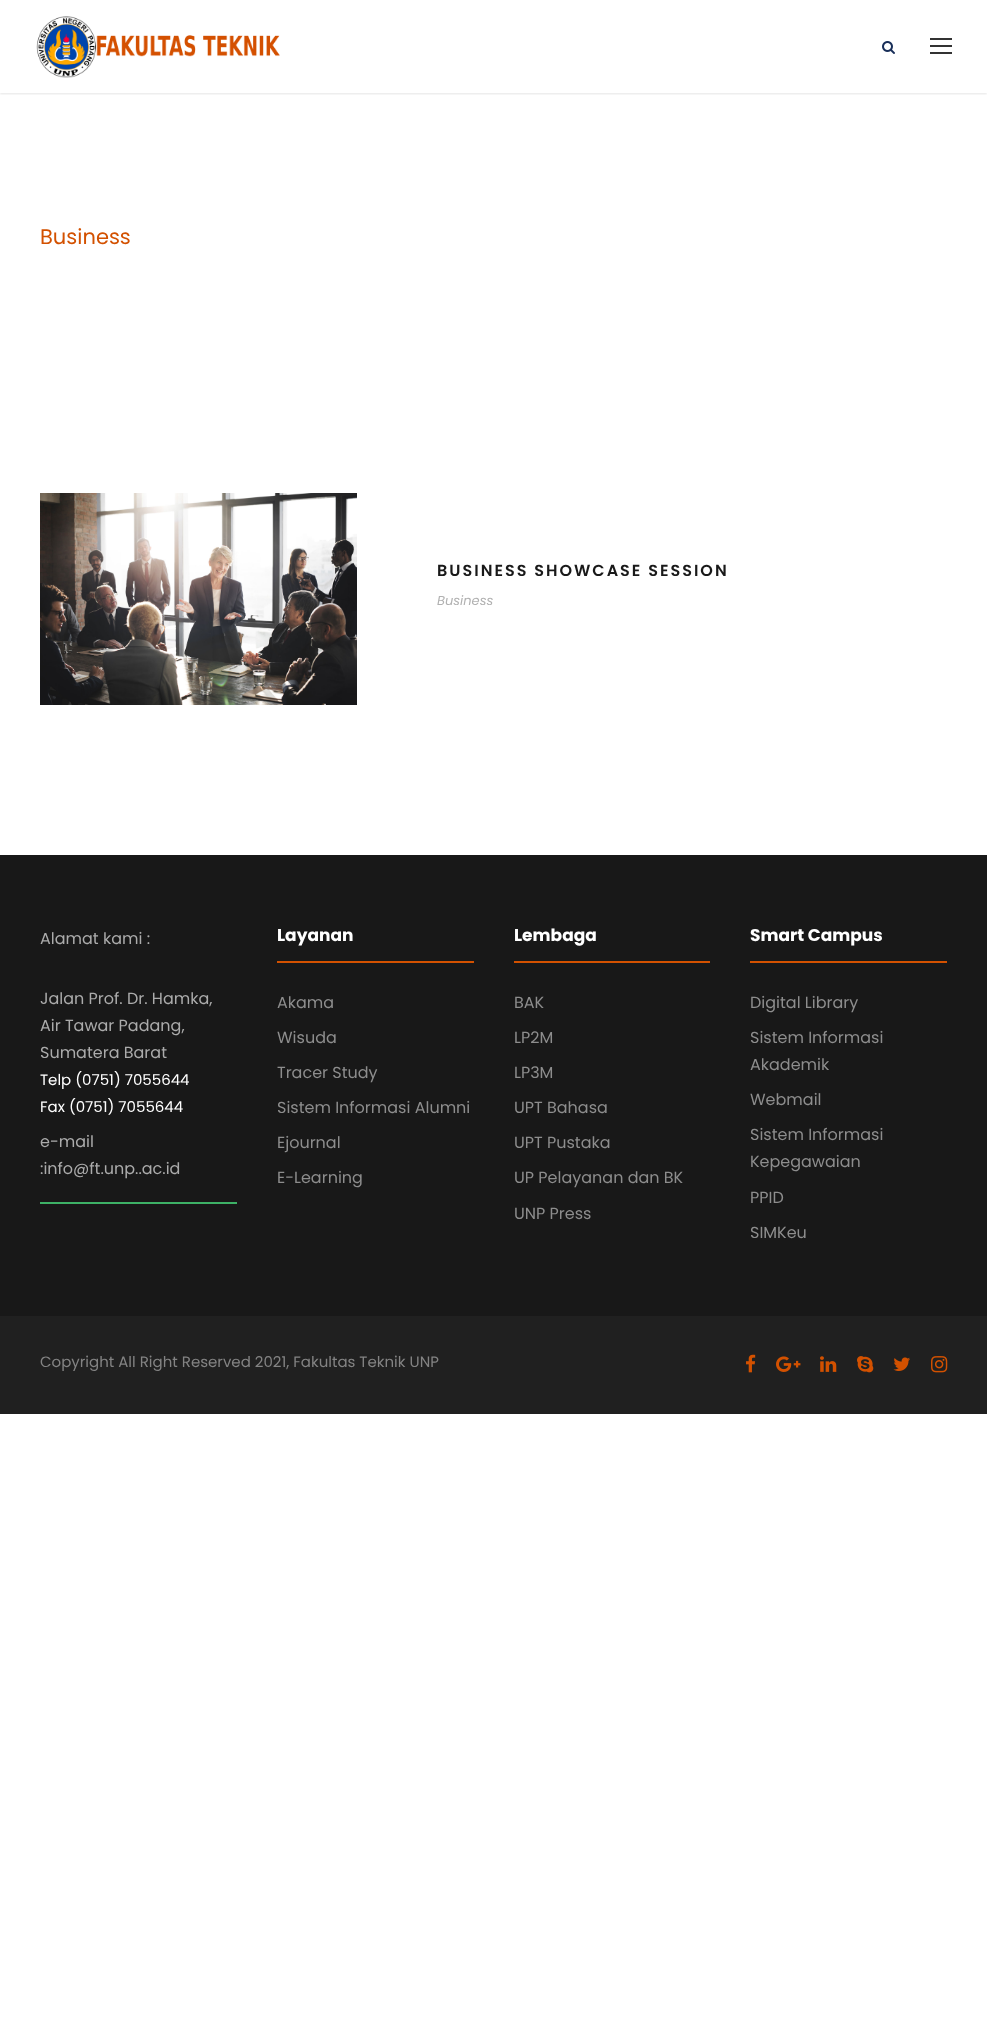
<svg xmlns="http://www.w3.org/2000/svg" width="987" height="2044">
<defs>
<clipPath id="clip1"><rect x="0" y="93" width="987" height="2"/></clipPath>
</defs>
<rect width="100%" height="100%" fill="#fff"/>
<g clip-path="url(#clip1)">
<rect y="1" width="987" height="93" fill="#0000001a" filter="blur(1px)"/>
</g>
<image x="36" y="16" width="244" height="62" href="media/1.png"/>
<image x="882" y="41" width="13" height="13" href="media/2.png"/>
<rect x="930" y="38" width="22" height="2" fill="#333"/>
<rect x="930" y="45" width="22" height="2" fill="#333"/>
<rect x="930" y="52" width="22" height="2" fill="#333"/>
<text x="40" y="244" style="font-family:Poppins;font-size:21px;fill:#d35100">Business</text>
<image x="40" y="493" width="317" height="212" href="media/3.png"/>
<text x="437" y="576" style="font-family:Poppins;font-size:16px;font-weight:600;letter-spacing:2px;fill:#191919">BUSINESS SHOWCASE SESSION</text>
<text x="437" y="605" style="font-family:Poppins;font-size:13px;font-style:italic;fill:#b1b1b1">Business</text>
<rect y="855" width="987" height="461" fill="#181818"/>
<text x="40" y="944" style="font-family:Poppins;font-size:16px;fill:#ababab">Alamat kami :</text>
<text x="40" y="1004" style="font-family:Poppins;font-size:16px;fill:#ababab">Jalan Prof. Dr. Hamka,</text>
<text x="40" y="1031" style="font-family:Poppins;font-size:16px;fill:#ababab">Air Tawar Padang,</text>
<text x="40" y="1058" style="font-family:Poppins;font-size:16px;fill:#ababab">Sumatera Barat</text>
<text x="40" y="1085" style="font-family:Poppins;font-size:15px;fill:#fff">Telp (0751) 7055644</text>
<text x="40" y="1112" style="font-family:Poppins;font-size:15px;fill:#fff">Fax (0751) 7055644</text>
<text x="40" y="1147" style="font-family:Poppins;font-size:16px;fill:#ababab">e-mail</text>
<text x="40" y="1174" style="font-family:Poppins;font-size:16px;fill:#ababab">:info@ft.unp..ac.id</text>
<rect x="40" y="1202" width="197" height="2" fill="#3db166"/>
<rect x="277" y="961" width="197" height="2" fill="#d35100"/>
<text x="277" y="941" style="font-family:Poppins;font-size:17px;font-weight:bold;fill:#fff">Layanan</text>
<text x="277" y="1008" style="font-family:Poppins;font-size:16px;fill:#8d8d8d">Akama</text>
<text x="277" y="1043" style="font-family:Poppins;font-size:16px;fill:#8d8d8d">Wisuda</text>
<text x="277" y="1078" style="font-family:Poppins;font-size:16px;fill:#8d8d8d">Tracer Study</text>
<text x="277" y="1113" style="font-family:Poppins;font-size:16px;fill:#8d8d8d">Sistem Informasi Alumni</text>
<text x="277" y="1148" style="font-family:Poppins;font-size:16px;fill:#8d8d8d">Ejournal</text>
<text x="277" y="1183" style="font-family:Poppins;font-size:16px;fill:#8d8d8d">E-Learning</text>
<rect x="514" y="961" width="196" height="2" fill="#d35100"/>
<text x="514" y="941" style="font-family:Poppins;font-size:17px;font-weight:bold;fill:#fff">Lembaga</text>
<text x="514" y="1008" style="font-family:Poppins;font-size:16px;fill:#8d8d8d">BAK</text>
<text x="514" y="1043" style="font-family:Poppins;font-size:16px;fill:#8d8d8d">LP2M</text>
<text x="514" y="1078" style="font-family:Poppins;font-size:16px;fill:#8d8d8d">LP3M</text>
<text x="514" y="1113" style="font-family:Poppins;font-size:16px;fill:#8d8d8d">UPT Bahasa</text>
<text x="514" y="1148" style="font-family:Poppins;font-size:16px;fill:#8d8d8d">UPT Pustaka</text>
<text x="514" y="1183" style="font-family:Poppins;font-size:16px;fill:#8d8d8d">UP Pelayanan dan BK</text>
<text x="514" y="1219" style="font-family:Poppins;font-size:16px;fill:#8d8d8d">UNP Press</text>
<rect x="750" y="961" width="197" height="2" fill="#d35100"/>
<text x="750" y="941" style="font-family:Poppins;font-size:17px;font-weight:bold;fill:#fff">Smart Campus</text>
<text x="750" y="1008" style="font-family:Poppins;font-size:16px;fill:#8d8d8d">Digital Library</text>
<text x="750" y="1043" style="font-family:Poppins;font-size:16px;fill:#8d8d8d">Sistem Informasi</text>
<text x="750" y="1070" style="font-family:Poppins;font-size:16px;fill:#8d8d8d">Akademik</text>
<text x="750" y="1105" style="font-family:Poppins;font-size:16px;fill:#8d8d8d">Webmail</text>
<text x="750" y="1140" style="font-family:Poppins;font-size:16px;fill:#8d8d8d">Sistem Informasi</text>
<text x="750" y="1167" style="font-family:Poppins;font-size:16px;fill:#8d8d8d">Kepegawaian</text>
<text x="750" y="1203" style="font-family:Poppins;font-size:16px;fill:#8d8d8d">PPID</text>
<text x="750" y="1238" style="font-family:Poppins;font-size:16px;fill:#8d8d8d">SIMKeu</text>
<rect y="1316" width="987" height="98" fill="#202020"/>
<text x="40" y="1367" style="font-family:Poppins;font-size:15px;fill:#838383">Copyright All Right Reserved 2021, Fakultas Teknik UNP</text>
<image x="746" y="1354" width="10" height="19" href="media/4.png"/>
<image x="776" y="1356" width="25" height="16" href="media/5.png"/>
<image x="820" y="1356" width="17" height="16" href="media/6.png"/>
<image x="857" y="1356" width="17" height="17" href="media/7.png"/>
<image x="893" y="1357" width="17" height="14" href="media/8.png"/>
<image x="931" y="1356" width="17" height="17" href="media/9.png"/>
</svg>
